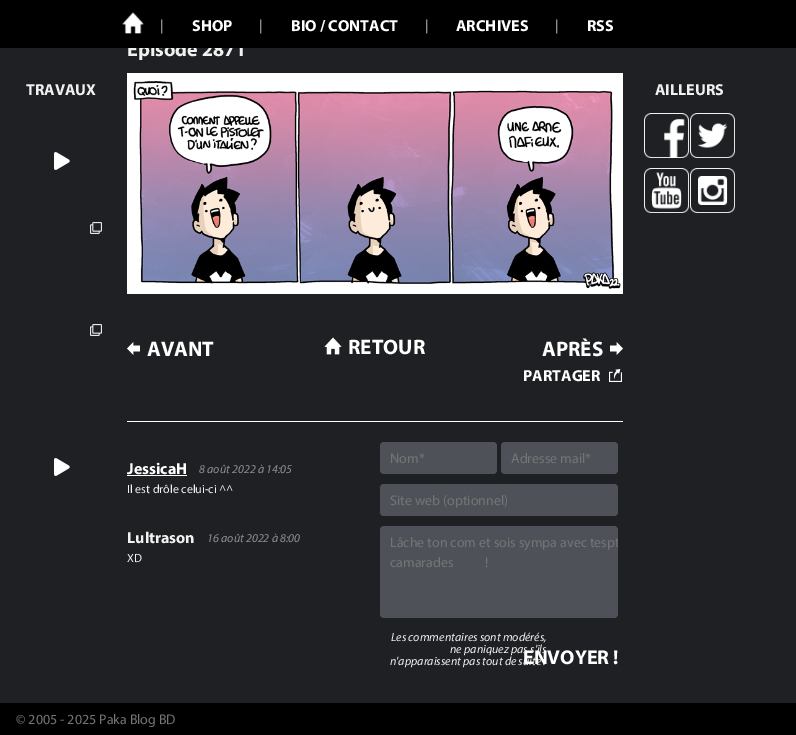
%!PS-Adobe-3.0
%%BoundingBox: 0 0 796 735
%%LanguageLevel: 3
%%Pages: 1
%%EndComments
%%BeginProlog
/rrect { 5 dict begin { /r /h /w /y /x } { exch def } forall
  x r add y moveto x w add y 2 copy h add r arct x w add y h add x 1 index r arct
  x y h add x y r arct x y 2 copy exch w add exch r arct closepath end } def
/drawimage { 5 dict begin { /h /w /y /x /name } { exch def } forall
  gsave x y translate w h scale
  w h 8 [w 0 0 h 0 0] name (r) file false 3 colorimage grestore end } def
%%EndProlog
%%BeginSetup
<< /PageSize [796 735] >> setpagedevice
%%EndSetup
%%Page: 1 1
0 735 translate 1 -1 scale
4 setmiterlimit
0.122 0.125 0.137 setrgbcolor
0 0 796 735 rectfill
(images/2.raw) 54 152 16 18 drawimage
(images/3.raw) 90 222 12 12 drawimage
(images/3.raw) 90 324 12 12 drawimage
(images/2.raw) 54 458 16 18 drawimage
(images/4.raw) 127 73 496 221 drawimage
(images/5.raw) 127 342 13 13 drawimage
(images/6.raw) 610 342 13 13 drawimage
(images/7.raw) 324 337 18 18 drawimage
(images/8.raw) 609 369 13 13 drawimage
1 setgray
127 421 496 1 rectfill
127 475 60 1 rectfill
0.31 0.318 0.349 setrgbcolor
380 442 117 32 4 rrect fill
501 442 117 32 4 rrect fill
380 484 238 32 4 rrect fill
380 526 238 92 4 rrect fill
(images/9.raw) 644 113 45 45 drawimage
(images/10.raw) 690 113 45 45 drawimage
(images/11.raw) 644 168 45 45 drawimage
(images/12.raw) 690 168 45 45 drawimage
0 setgray
0 703 796 32 rectfill
/Myriad-Bold [16 0 0 -16 0 0] selectfont
0.945 setgray
26 95 moveto (TRAVAUX) show
/Myriad-Bold [20 0 0 -20 0 0] selectfont
127 56 moveto (Episode 2871) show
0 setgray
0 0 796 48 rectfill
/Myriad-Bold [16 0 0 -16 0 0] selectfont
1 setgray
587 31 moveto (RSS) show
/Myriad-Regular [14 0 0 -14 0 0] selectfont
0.753 setgray
555 30 moveto (|) show
/Myriad-Bold [16 0 0 -16 0 0] selectfont
1 setgray
456 31 moveto (ARCHIVES) show
/Myriad-Regular [14 0 0 -14 0 0] selectfont
0.753 setgray
425 30 moveto (|) show
/Myriad-Bold [16 0 0 -16 0 0] selectfont
1 setgray
291 31 moveto (BIO / CONTACT) show
/Myriad-Regular [14 0 0 -14 0 0] selectfont
0.753 setgray
259 30 moveto (|) show
/Myriad-Bold [16 0 0 -16 0 0] selectfont
1 setgray
192 31 moveto (SHOP) show
/Myriad-Regular [14 0 0 -14 0 0] selectfont
0.753 setgray
160 30 moveto (|) show
(images/1.raw) 122 12 22 22 drawimage
/Myriad-Bold [21 0 0 -21 0 0] selectfont
1 setgray
147 356 moveto (AVANT) show
542 356 moveto (APRÈS) show
348 354 moveto (RETOUR) show
/Myriad-Bold [16 0 0 -16 0 0] selectfont
523 381 moveto (PARTAGER) show
127 474 moveto (JessicaH) show
/Myriad-Italic [12 0 0 -12 0 0] selectfont
0.565 setgray
199 473 moveto (8 août 2022 à 14:05) show
/Myriad-Regular [12 0 0 -12 0 0] selectfont
0.945 setgray
127 493 moveto (Il est drôle celui-ci ^^) show
/Myriad-Bold [16 0 0 -16 0 0] selectfont
127 543 moveto (Lultrason) show
/Myriad-Italic [12 0 0 -12 0 0] selectfont
0.565 setgray
207 542 moveto (16 août 2022 à 8:00) show
/Myriad-Regular [12 0 0 -12 0 0] selectfont
0.945 setgray
127 562 moveto (XD) show
/Myriad-Regular [14 0 0 -14 0 0] selectfont
0.459 setgray
390 463 moveto (Nom*) show
511 463 moveto (Adresse mail*) show
390 505 moveto (Site web \(optionnel\)) show
390 547 moveto (Lâche ton com et sois sympa avec tes) show
gsave
380 526 238 92 4 rrect clip newpath
607 547 moveto (pt) show
grestore
390 567 moveto 29 0 32 (camarades !) widthshow
/Myriad-Italic [12 0 0 -12 0 0] selectfont
0.945 setgray
391 641 moveto (Les commentaires sont modérés,) show
450 653 moveto (ne paniquez pas s'ils) show
390 665 moveto (n'apparaissent pas tout de suite !) show
/Myriad-Bold [20 0 0 -20 0 0] selectfont
1 setgray
523 664 moveto (ENVOYER !) show
/Myriad-Bold [16 0 0 -16 0 0] selectfont
0.945 setgray
655 95 moveto (AILLEURS) show
/Myriad-Regular [14 0 0 -14 0 0] selectfont
0.459 setgray
16 724 moveto (© 2005 - 2025 Paka Blog BD) show
showpage
%%EOF
